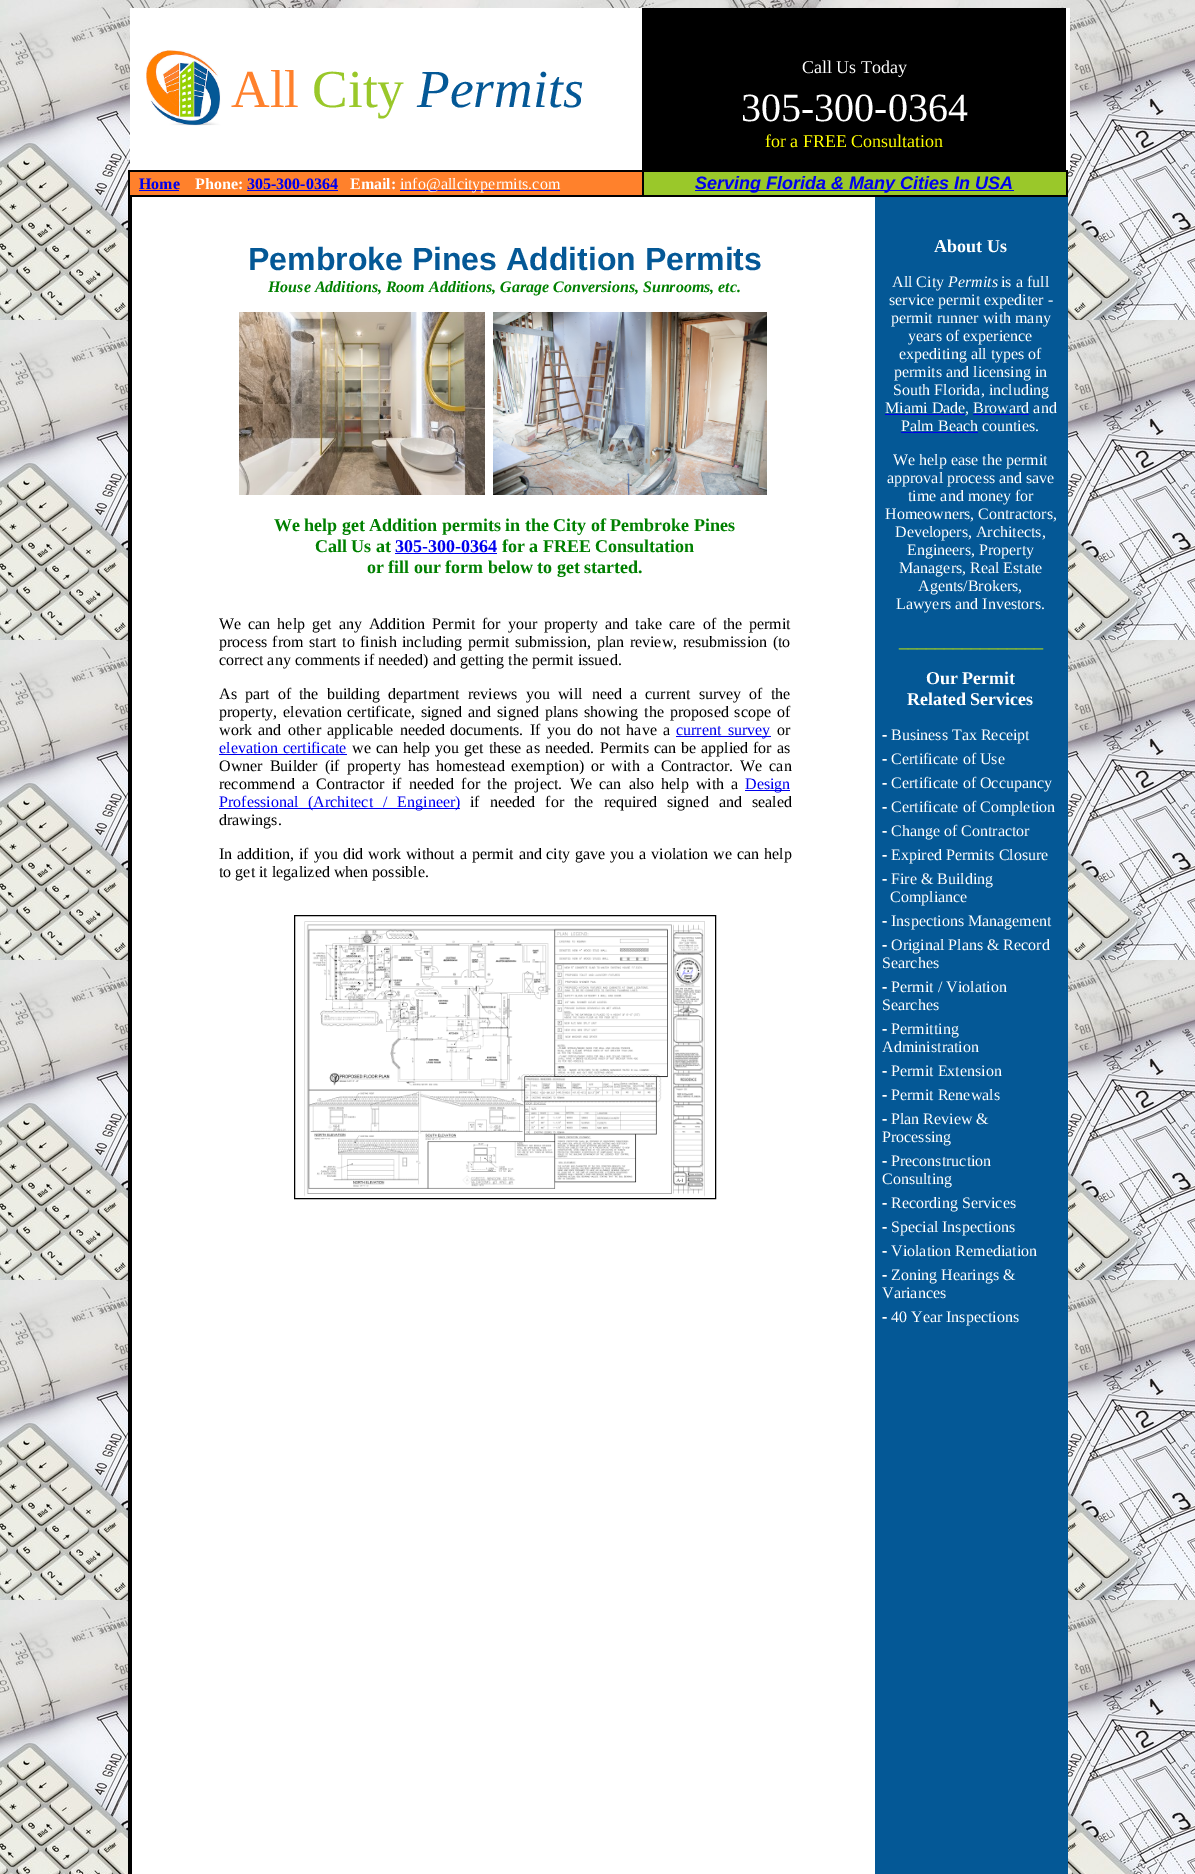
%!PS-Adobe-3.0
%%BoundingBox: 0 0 1195 1874
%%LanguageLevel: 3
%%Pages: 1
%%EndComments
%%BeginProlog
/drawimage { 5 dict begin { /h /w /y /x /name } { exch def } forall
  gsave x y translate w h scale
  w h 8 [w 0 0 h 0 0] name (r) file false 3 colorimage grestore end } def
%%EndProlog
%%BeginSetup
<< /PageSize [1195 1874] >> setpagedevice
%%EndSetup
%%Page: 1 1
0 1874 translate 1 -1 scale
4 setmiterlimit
1 setgray
0 0 1195 1874 rectfill
(images/1.raw) 0 0 1195 1874 drawimage
130 8 98 162 rectfill
1066 8 4 162 rectfill
(images/2.raw) 146 50 75 76 drawimage
228 8 414 135 rectfill
0 setgray
642 8 424 162 rectfill
1 setgray
228 143 414 27 rectfill
0 setgray
128 170 940 27 rectfill
1 0.506 0.173 setrgbcolor
130 172 512 23 rectfill
0 0 0.933 setrgbcolor
139 190 40 1 rectfill
247 190 91 1 rectfill
400 190 160 1 rectfill
0.604 0.784 0.165 setrgbcolor
644 172 422 23 rectfill
0 0 0.933 setrgbcolor
695 190 319 1 rectfill
1 setgray
132 197 743 1677 rectfill
0 setgray
128 197 4 1677 rectfill
0.016 0.345 0.588 setrgbcolor
875 197 193 1677 rectfill
(images/3.raw) 239 312 246 183 drawimage
(images/4.raw) 493 312 274 183 drawimage
0 0 0.933 setrgbcolor
395 553 102 1 rectfill
676 736 95 1 rectfill
219 754 128 1 rectfill
745 790 45 1 rectfill
219 808 241 1 rectfill
0 setgray
294.5 915.5 421 283 rectstroke
(images/5.raw) 304 921 401 276 drawimage
0 0 0.933 setrgbcolor
885 414 80 1 rectfill
901 432 77 1 rectfill
/LiberationSerif-Regular [53.5 0 0 -53.5 0 0] selectfont
1 0.506 0.173 setrgbcolor
231 107 moveto (All) show
0.604 0.784 0.165 setrgbcolor
312 107 moveto (City) show
/LiberationSerif-Italic [53.5 0 0 -53.5 0 0] selectfont
0.016 0.345 0.588 setrgbcolor
417 107 moveto (Permits) show
/LiberationSerif-Regular [18 0 0 -18 0 0] selectfont
1 setgray
802 73 moveto (Call Us Today) show
/LiberationSerif-Regular [40 0 0 -40 0 0] selectfont
741 121 moveto (305-300-0364) show
/LiberationSerif-Regular [18 0 0 -18 0 0] selectfont
1 1 0 setrgbcolor
765 147 moveto (for a FREE Consultation) show
/LiberationSerif-Bold [16 0 0 -16 0 0] selectfont
0 0 0.933 setrgbcolor
139 189 moveto (Home) show
1 setgray
195 189 moveto (Phone:) show
0 0 0.933 setrgbcolor
247 189 moveto (305-300-0364) show
1 setgray
350 189 moveto (Email:) show
/LiberationSerif-Regular [16 0 0 -16 0 0] selectfont
400 189 moveto (info@allcitypermits.com) show
/LiberationSans-BoldItalic [18 0 0 -18 0 0] selectfont
0 0 0.933 setrgbcolor
695 189 moveto (Serving Florida & Many Cities In USA) show
/LiberationSans-Bold [32 0 0 -32 0 0] selectfont
0.016 0.345 0.588 setrgbcolor
248 270 moveto (Pembroke Pines Addition Permits) show
/LiberationSerif-BoldItalic [16 0 0 -16 0 0] selectfont
0 0.502 0 setrgbcolor
268 292 moveto (House Additions, Room Additions, Garage Conversions, Sunrooms, etc.) show
/LiberationSerif-Bold [18 0 0 -18 0 0] selectfont
274 531 moveto (We help get Addition permits in the City of Pembroke Pines) show
315 552 moveto (Call Us at) show
0 0 0.933 setrgbcolor
395 552 moveto (305-300-0364) show
0 0.502 0 setrgbcolor
502 552 moveto (for a FREE Consultation) show
367 573 moveto (or fill our form below to get started.) show
/LiberationSerif-Regular [16 0 0 -16 0 0] selectfont
0 setgray
219 629 moveto 3 0 32 (We can help get any Addition Permit for your) widthshow
544 629 moveto 3 0 32 (property and take care of the p) widthshow
757 629 moveto (ermit) show
219 647 moveto 1.5 0 32 (process from start to finish including permit) widthshow
515 647 moveto 1.5 0 32 (submission, plan review, resubmission \(to) widthshow
219 665 moveto (correct any comments if needed\) and getting the permit issued.) show
219 699 moveto 4 0 32 (As part of the building department reviews you will) widthshow
592 699 moveto 4 0 32 (need a current survey of the) widthshow
219 717 moveto 1.75 0 32 (property, elevation) widthshow
347 717 moveto 1.75 0 32 (certificate, signed and signed plans showing the) widthshow
670 717 moveto 1.75 0 32 (proposed scope of) widthshow
219 735 moveto 2.5 0 32 (work and other applicable needed) widthshow
450 735 moveto 2.5 0 32 (documents. If you) widthshow
577 735 moveto 2.5 0 32 (do not have a) widthshow
0 0 0.933 setrgbcolor
676 735 moveto 2.5 0 32 (current survey) widthshow
0 setgray
777 735 moveto (or) show
0 0 0.933 setrgbcolor
219 753 moveto 1 0 32 (elevation certificate) widthshow
0 setgray
352 753 moveto 1 0 32 (we can help you) widthshow
464 753 moveto 1 0 32 (get these as needed.) widthshow
600 753 moveto 1 0 32 (Permits can be applied) widthshow
753 753 moveto 1 0 32 (for as) widthshow
219 771 moveto 3 0 32 (Owner Builder \(if property has homestead) widthshow
511 771 moveto 3 0 32 (exemption\) or with a Contractor. We can) widthshow
219 789 moveto 3.25 0 32 (recommend a) widthshow
316 789 moveto 3.25 0 32 (Contractor if needed for the project. We can also) widthshow
661 789 moveto 3.25 0 32 (help with a) widthshow
0 0 0.933 setrgbcolor
745 789 moveto (Design) show
219 807 moveto 6 0 32 (Professional \(Architect / Engineer\)) widthshow
0 setgray
470 807 moveto (if) show
490 807 moveto 6 0 32 (needed for the required signed and sealed) widthshow
219 825 moveto (drawings.) show
219 859 moveto 1 0 32 (In addition, if you did work without a permit and) widthshow
546 859 moveto 1 0 32 (city gave you a violation we can help) widthshow
219 877 moveto (to get it legalized when possible.) show
/LiberationSerif-Bold [18 0 0 -18 0 0] selectfont
1 setgray
934 252 moveto (About Us) show
/LiberationSerif-Regular [16 0 0 -16 0 0] selectfont
892 287 moveto (All City) show
/LiberationSerif-Italic [16 0 0 -16 0 0] selectfont
948 287 moveto (Permits) show
/LiberationSerif-Regular [16 0 0 -16 0 0] selectfont
1001 287 moveto (is a full) show
889 305 moveto (service permit expediter -) show
891 323 moveto (permit runner with many) show
908 341 moveto (years of experience) show
899 359 moveto (expediting all types of) show
894 377 moveto (permits and licensing in) show
893 395 moveto (South Florida, including) show
885 413 moveto (Miami Dade, Broward and) show
0 0 0.933 setrgbcolor
973 414 56 1 rectfill
1 setgray
901 431 moveto (Palm Beach counties.) show
893 465 moveto (We help ease the permit) show
887 483 moveto (approval process and save) show
908 501 moveto (time and money for) show
885 519 moveto (Homeowners, Contractors,) show
895 537 moveto (Developers, Architects,) show
907 555 moveto (Engineers, Property) show
899 573 moveto (Managers, Real Estate) show
918 591 moveto (Agents/Brokers,) show
896 609 moveto (Lawyers and Investors.) show
/LiberationSerif-Bold [18 0 0 -18 0 0] selectfont
0.604 0.784 0.165 setrgbcolor
899 647 moveto (________________) show
1 setgray
926 684 moveto (Our Permit) show
907 705 moveto (Related Services) show
/LiberationSans-Bold [16 0 0 -16 0 0] selectfont
882 740 moveto (-) show
/LiberationSerif-Regular [16 0 0 -16 0 0] selectfont
891 740 moveto (Business Tax Receipt) show
/LiberationSans-Bold [16 0 0 -16 0 0] selectfont
882 764 moveto (-) show
/LiberationSerif-Regular [16 0 0 -16 0 0] selectfont
891 764 moveto (Certificate of Use) show
/LiberationSans-Bold [16 0 0 -16 0 0] selectfont
882 788 moveto (-) show
/LiberationSerif-Regular [16 0 0 -16 0 0] selectfont
891 788 moveto (Certificate of Occupancy) show
/LiberationSans-Bold [16 0 0 -16 0 0] selectfont
882 812 moveto (-) show
/LiberationSerif-Regular [16 0 0 -16 0 0] selectfont
891 812 moveto (Certificate of Completion) show
/LiberationSans-Bold [16 0 0 -16 0 0] selectfont
882 836 moveto (-) show
/LiberationSerif-Regular [16 0 0 -16 0 0] selectfont
891 836 moveto (Change of Contractor) show
/LiberationSans-Bold [16 0 0 -16 0 0] selectfont
882 860 moveto (-) show
/LiberationSerif-Regular [16 0 0 -16 0 0] selectfont
891 860 moveto (Expired Permits Closure) show
/LiberationSans-Bold [16 0 0 -16 0 0] selectfont
882 884 moveto (-) show
/LiberationSerif-Regular [16 0 0 -16 0 0] selectfont
891 884 moveto (Fire & Building) show
890 902 moveto (Compliance) show
/LiberationSans-Bold [16 0 0 -16 0 0] selectfont
882 926 moveto (-) show
/LiberationSerif-Regular [16 0 0 -16 0 0] selectfont
891 926 moveto (Inspections Management) show
/LiberationSans-Bold [16 0 0 -16 0 0] selectfont
882 950 moveto (-) show
/LiberationSerif-Regular [16 0 0 -16 0 0] selectfont
891 950 moveto (Original Plans & Record) show
882 968 moveto (Searches) show
/LiberationSans-Bold [16 0 0 -16 0 0] selectfont
882 992 moveto (-) show
/LiberationSerif-Regular [16 0 0 -16 0 0] selectfont
891 992 moveto (Permit / Violation) show
882 1010 moveto (Searches) show
/LiberationSans-Bold [16 0 0 -16 0 0] selectfont
882 1034 moveto (-) show
/LiberationSerif-Regular [16 0 0 -16 0 0] selectfont
891 1034 moveto (Permitting) show
882 1052 moveto (Administration) show
/LiberationSans-Bold [16 0 0 -16 0 0] selectfont
882 1076 moveto (-) show
/LiberationSerif-Regular [16 0 0 -16 0 0] selectfont
891 1076 moveto (Permit Extension) show
/LiberationSans-Bold [16 0 0 -16 0 0] selectfont
882 1100 moveto (-) show
/LiberationSerif-Regular [16 0 0 -16 0 0] selectfont
891 1100 moveto (Permit Renewals) show
/LiberationSans-Bold [16 0 0 -16 0 0] selectfont
882 1124 moveto (-) show
/LiberationSerif-Regular [16 0 0 -16 0 0] selectfont
891 1124 moveto (Plan Review &) show
882 1142 moveto (Processing) show
/LiberationSans-Bold [16 0 0 -16 0 0] selectfont
882 1166 moveto (-) show
/LiberationSerif-Regular [16 0 0 -16 0 0] selectfont
891 1166 moveto (Preconstruction) show
882 1184 moveto (Consulting) show
/LiberationSans-Bold [16 0 0 -16 0 0] selectfont
882 1208 moveto (-) show
/LiberationSerif-Regular [16 0 0 -16 0 0] selectfont
891 1208 moveto (Recording Services) show
/LiberationSans-Bold [16 0 0 -16 0 0] selectfont
882 1232 moveto (-) show
/LiberationSerif-Regular [16 0 0 -16 0 0] selectfont
891 1232 moveto (Special Inspections) show
/LiberationSans-Bold [16 0 0 -16 0 0] selectfont
882 1256 moveto (-) show
/LiberationSerif-Regular [16 0 0 -16 0 0] selectfont
891 1256 moveto (Violation Remediation) show
/LiberationSans-Bold [16 0 0 -16 0 0] selectfont
882 1280 moveto (-) show
/LiberationSerif-Regular [16 0 0 -16 0 0] selectfont
891 1280 moveto (Zoning Hearings &) show
882 1298 moveto (Variances) show
/LiberationSans-Bold [16 0 0 -16 0 0] selectfont
882 1322 moveto (-) show
/LiberationSerif-Regular [16 0 0 -16 0 0] selectfont
891 1322 moveto (40 Year Inspections) show
showpage
%%EOF
